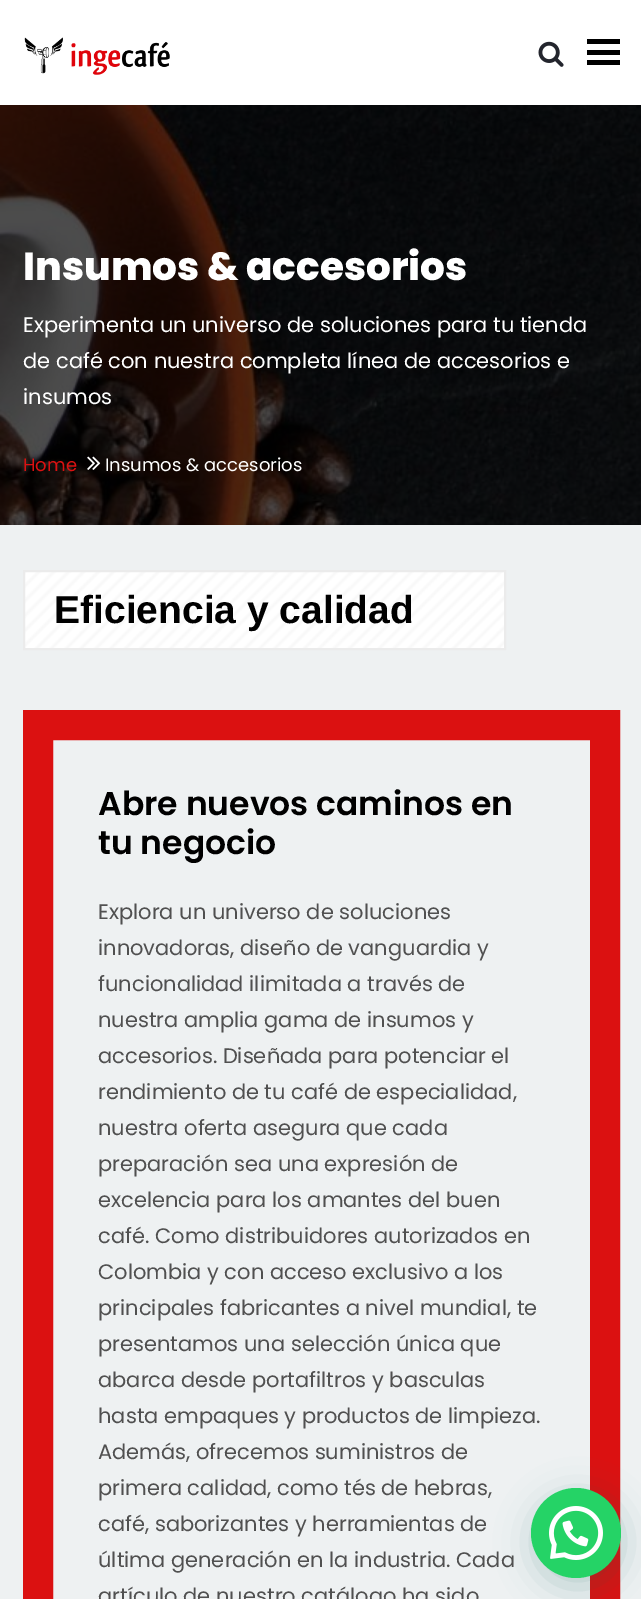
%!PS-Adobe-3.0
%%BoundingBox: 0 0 641 1599
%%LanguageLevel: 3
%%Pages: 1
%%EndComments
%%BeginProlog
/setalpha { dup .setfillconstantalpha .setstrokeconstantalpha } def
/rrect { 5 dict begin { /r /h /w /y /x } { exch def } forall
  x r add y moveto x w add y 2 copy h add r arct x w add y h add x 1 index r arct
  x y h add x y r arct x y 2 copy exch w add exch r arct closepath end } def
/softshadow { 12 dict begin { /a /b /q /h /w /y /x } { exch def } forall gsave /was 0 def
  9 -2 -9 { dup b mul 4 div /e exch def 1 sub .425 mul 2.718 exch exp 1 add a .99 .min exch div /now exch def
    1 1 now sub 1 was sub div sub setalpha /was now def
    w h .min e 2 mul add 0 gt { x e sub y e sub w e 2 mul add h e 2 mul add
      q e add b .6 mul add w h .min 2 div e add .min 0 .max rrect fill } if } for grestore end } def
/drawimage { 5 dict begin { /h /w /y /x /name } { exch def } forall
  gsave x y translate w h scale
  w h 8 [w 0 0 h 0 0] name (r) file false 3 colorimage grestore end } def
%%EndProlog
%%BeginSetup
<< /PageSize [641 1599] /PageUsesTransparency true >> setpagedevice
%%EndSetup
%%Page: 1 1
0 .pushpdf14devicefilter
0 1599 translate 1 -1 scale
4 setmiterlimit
1 setgray
0 0 641 1599 rectfill
(images/1.raw) 24 37 146 38 drawimage
(images/2.raw) 538 41 26 26 drawimage
0 setgray
587 39 33 5 rectfill
587 50 33 5 rectfill
587 60 33 5 rectfill
(images/3.raw) 0 105 641 420 drawimage
(images/4.raw) 87 456 14 14 drawimage
0.933 0.945 0.949 setrgbcolor
0 525 641 1074 rectfill
1 setgray
25 572 479 76 rectfill
(images/5.raw) 25 572 479 76 drawimage
0.922 setgray
2 setlinewidth
24 571 481 78 rectstroke
0.859 0.067 0.067 setrgbcolor
30 setlinewidth
38 725 567 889 rectstroke
0.027 0.369 0.329 setrgbcolor
533 1497 90 90 45 18 0.24 softshadow
0.145 0.827 0.4 setrgbcolor
newpath 576 1533 45 0 360 arc closepath fill
(images/6.raw) 549 1506 54 54 drawimage
/Poppins-ExtraBold [39 0 0 -39 0 0] selectfont
1 setgray
23 280 moveto (Insumos & accesorios) show
/Poppins-Regular [21 0 0 -21 0 0] selectfont
23 332 moveto (Experimenta un universo de soluciones para tu tienda) show
23 368 moveto (de café con nuestra completa línea de accesorios e) show
23 404 moveto (insumos) show
/Poppins-Regular [18 0 0 -18 0 0] selectfont
0.859 0.067 0.067 setrgbcolor
23 471 moveto (Home) show
1 setgray
105 471 moveto (Insumos & accesorios) show
/LiberationSans-Bold [39 0 0 -39 0 0] selectfont
0 setgray
54 623 moveto (Eficiencia y calidad) show
/Poppins-SemiBold [33 0 0 -33 0 0] selectfont
98 815 moveto (Abre nuevos caminos en) show
98 854 moveto (tu negocio) show
/Poppins-Regular [21 0 0 -21 0 0] selectfont
0.314 setgray
98 919 moveto (Explora un universo de soluciones) show
98 955 moveto (innovadoras, diseño de vanguardia y) show
98 991 moveto (funcionalidad ilimitada a través de) show
98 1027 moveto (nuestra amplia gama de insumos y) show
98 1063 moveto (accesorios. Diseñada para potenciar el) show
98 1099 moveto (rendimiento de tu café de especialidad,) show
98 1135 moveto (nuestra oferta asegura que cada) show
98 1171 moveto (preparación sea una expresión de) show
98 1207 moveto (excelencia para los amantes del buen) show
98 1243 moveto (café. Como distribuidores autorizados en) show
98 1279 moveto (Colombia y con acceso exclusivo a los) show
98 1315 moveto (principales fabricantes a nivel mundial, te) show
98 1351 moveto (presentamos una selección única que) show
98 1387 moveto (abarca desde portafiltros y basculas) show
98 1423 moveto (hasta empaques y productos de limpieza.) show
98 1459 moveto (Además, ofrecemos suministros de) show
98 1495 moveto (primera calidad, como tés de hebras,) show
98 1531 moveto (café, saborizantes y herramientas de) show
98 1567 moveto (última generación en la industria. Cada) show
98 1603 moveto (artículo de nuestro catálogo ha sido) show
.poppdf14devicefilter showpage
%%EOF
